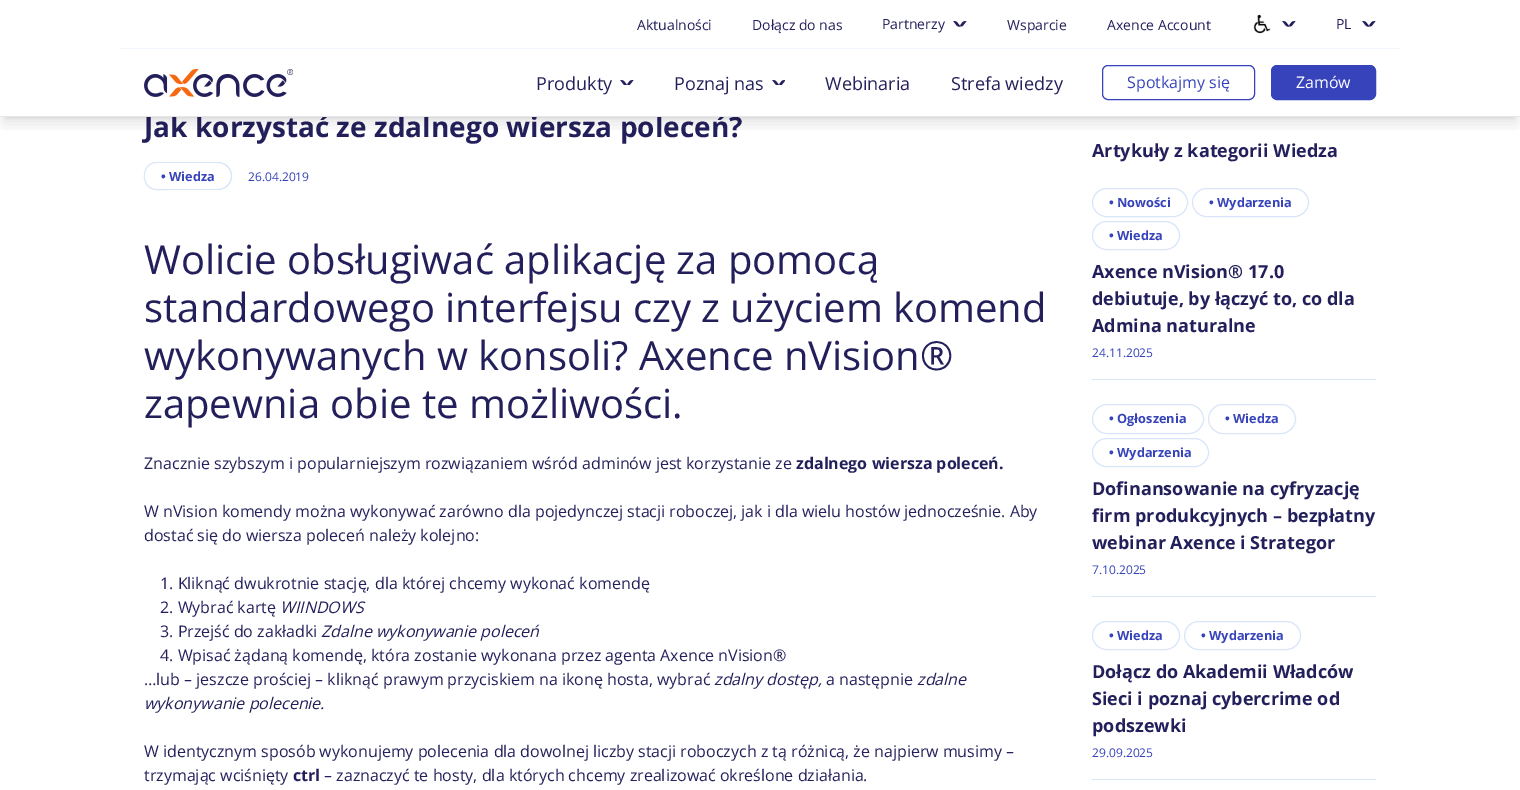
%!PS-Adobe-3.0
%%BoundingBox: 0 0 1520 790
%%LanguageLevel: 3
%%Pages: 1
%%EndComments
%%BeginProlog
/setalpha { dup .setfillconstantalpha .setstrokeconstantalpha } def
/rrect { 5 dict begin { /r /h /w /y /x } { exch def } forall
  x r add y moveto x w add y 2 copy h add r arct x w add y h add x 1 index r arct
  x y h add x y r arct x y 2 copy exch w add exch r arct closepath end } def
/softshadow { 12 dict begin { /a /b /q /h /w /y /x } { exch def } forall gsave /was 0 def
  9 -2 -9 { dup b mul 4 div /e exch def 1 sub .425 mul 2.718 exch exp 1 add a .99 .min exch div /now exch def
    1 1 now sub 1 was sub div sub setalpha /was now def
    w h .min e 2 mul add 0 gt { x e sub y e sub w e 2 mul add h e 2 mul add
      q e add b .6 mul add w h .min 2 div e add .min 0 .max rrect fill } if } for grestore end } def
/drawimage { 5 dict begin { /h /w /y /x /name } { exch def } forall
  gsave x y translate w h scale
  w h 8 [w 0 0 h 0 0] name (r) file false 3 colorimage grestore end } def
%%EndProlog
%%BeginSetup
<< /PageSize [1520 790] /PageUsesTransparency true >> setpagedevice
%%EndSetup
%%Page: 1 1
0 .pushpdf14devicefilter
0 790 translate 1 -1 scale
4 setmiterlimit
1 setgray
0 0 1520 790 rectfill
0.851 0.898 0.976 setrgbcolor
newpath 156.5 162 moveto 169 162 lineto 169 190 lineto 164.5 190 156 191 151.5 189 curveto 139.5 184 142 162 156.5 162 curveto closepath 156.5 163 moveto 169 163 lineto 169 189 lineto 164.5 189 156 190 152 188 curveto 140.5 183.5 143 163 156.5 163 curveto closepath eofill
newpath 169 162 moveto 218 162 lineto 226 162 232 168 232 176 curveto 232 184 226 190 218 190 curveto 169 190 lineto closepath 169 163 moveto 218 163 lineto 225 163 231 169 231 176 curveto 231 183 225 189 218 189 curveto 169 189 lineto closepath eofill
1092 379 284 1 rectfill
1092.5 188.5 95 28 14 rrect stroke
1192.5 188.5 116 28 14 rrect stroke
1092.5 221.5 87 28 14 rrect stroke
1092 596 284 1 rectfill
1092.5 404.5 111 29 14.5 rrect stroke
1208.5 404.5 87 29 14.5 rrect stroke
1092.5 438.5 116 28 14 rrect stroke
1092 779 284 1 rectfill
1092.5 621.5 87 28 14 rrect stroke
1184.5 621.5 116 28 14 rrect stroke
/OpenSans-Bold [28 0 0 -28 0 0] selectfont
0.137 0.122 0.357 setrgbcolor
144 137 moveto (Jak korzystać ze zdalnego wiersza poleceń?) show
1 setgray
172 115 554 1 rectfill
gsave
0 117 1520 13 rectclip
0 setgray
3 13 1514 111 0 7.5 0.1 softshadow
grestore
gsave
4 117 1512 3 rectclip
0 setgray
4 8 1512 109 0 3 0.1 softshadow
grestore
(images/1.raw) 1282 21 14 6 drawimage
(images/2.raw) 1253 14 18 20 drawimage
(images/1.raw) 953 21 14 6 drawimage
/OpenSans-Regular [14 0 0 -14 0 0] selectfont
0.137 0.122 0.357 setrgbcolor
882 29 moveto (Partnerzy) show
1336 29 moveto (PL) show
(images/1.raw) 1362 21 14 6 drawimage
1107 30 moveto (Axence Account) show
1007 30 moveto (Wsparcie) show
752 30 moveto (Dołącz do nas) show
637 30 moveto (Aktualności) show
0.949 0.969 1 setrgbcolor
120 48 1280 1 rectfill
(images/5.raw) 772 80 13 5 drawimage
/OpenSans-Regular [18 0 0 -18 0 0] selectfont
0.137 0.122 0.357 setrgbcolor
674 90 moveto (Poznaj nas) show
0.212 0.263 0.729 setrgbcolor
1271.5 65.5 104 34 5.5 rrect gsave fill grestore
stroke
/OpenSans-Regular [16 0 0 -16 0 0] selectfont
1 setgray
1296 88 moveto (Zamów) show
0.212 0.263 0.729 setrgbcolor
1102.5 65.5 152 34 5.5 rrect stroke
1127 88 moveto (Spotkajmy się) show
(images/4.raw) 620 80 14 5 drawimage
/OpenSans-Regular [18 0 0 -18 0 0] selectfont
0.137 0.122 0.357 setrgbcolor
536 90 moveto (Produkty) show
(images/3.raw) 144 69 149 28 drawimage
951 90 moveto (Strefa wiedzy) show
825 90 moveto (Webinaria) show
0.898 0.906 0.922 setrgbcolor
0 116 1520 1 rectfill
/OpenSans-Bold [12.75 0 0 -12.75 0 0] selectfont
0.212 0.263 0.729 setrgbcolor
161 181 moveto (• Wiedza) show
/OpenSans-Regular [12 0 0 -12 0 0] selectfont
248 181 moveto (26.04.2019) show
/OpenSans-Regular [40 0 0 -40 0 0] selectfont
0.137 0.122 0.357 setrgbcolor
144 274 moveto (Wolicie obsługiwać aplikację za pomocą) show
144 322 moveto (standardowego interfejsu czy z użyciem komend) show
144 370 moveto (wykonywanych w konsoli? Axence nVision®) show
144 418 moveto (zapewnia obie te możliwości.) show
/OpenSans-Regular [16 0 0 -16 0 0] selectfont
144 469 moveto (Znacznie szybszym i popularniejszym rozwiązaniem wśród adminów jest korzystanie ze) show
/OpenSans-Bold [16 0 0 -16 0 0] selectfont
796 469 moveto (zdalnego wiersza poleceń.) show
/OpenSans-Regular [16 0 0 -16 0 0] selectfont
144 517 moveto (W nVision komendy można wykonywać zarówno dla pojedynczej stacji roboczej, jak i dla wielu hostów jednocześnie. Aby) show
144 541 moveto (dostać się do wiersza poleceń należy kolejno:) show
160 589 moveto (1. Kliknąć dwukrotnie stację, dla której chcemy wykonać komendę) show
160 613 moveto (2. Wybrać kartę) show
/OpenSans-Italic [16 0 0 -16 0 0] selectfont
280 613 moveto (WIINDOWS) show
/OpenSans-Regular [16 0 0 -16 0 0] selectfont
160 637 moveto (3. Przejść do zakładki) show
/OpenSans-Italic [16 0 0 -16 0 0] selectfont
321 637 moveto (Zdalne wykonywanie poleceń) show
/OpenSans-Regular [16 0 0 -16 0 0] selectfont
160 661 moveto (4. Wpisać żądaną komendę, która zostanie wykonana przez agenta Axence nVision®) show
144 685 moveto (…lub – jeszcze prościej – kliknąć prawym przyciskiem na ikonę hosta, wybrać) show
/OpenSans-Italic [16 0 0 -16 0 0] selectfont
714 685 moveto (zdalny dostęp,) show
/OpenSans-Regular [16 0 0 -16 0 0] selectfont
826 685 moveto (a następnie) show
/OpenSans-Italic [16 0 0 -16 0 0] selectfont
917 685 moveto (zdalne) show
144 709 moveto (wykonywanie polecenie.) show
/OpenSans-Regular [16 0 0 -16 0 0] selectfont
144 757 moveto (W identycznym sposób wykonujemy polecenia dla dowolnej liczby stacji roboczych z tą różnicą, że najpierw musimy –) show
144 781 moveto (trzymając wciśnięty) show
/OpenSans-Bold [16 0 0 -16 0 0] selectfont
293 781 moveto (ctrl) show
/OpenSans-Regular [16 0 0 -16 0 0] selectfont
324 781 moveto (– zaznaczyć te hosty, dla których chcemy zrealizować określone działania.) show
/OpenSans-Bold [18 0 0 -18 0 0] selectfont
1092 157 moveto (Artykuły z kategorii Wiedza) show
/OpenSans-Bold [12.75 0 0 -12.75 0 0] selectfont
0.212 0.263 0.729 setrgbcolor
1109 207 moveto (• Nowości) show
1209 207 moveto (• Wydarzenia) show
1109 240 moveto (• Wiedza) show
/OpenSans-Bold [18 0 0 -18 0 0] selectfont
0.137 0.122 0.357 setrgbcolor
1092 278 moveto (Axence nVision® 17.0) show
1092 305 moveto (debiutuje, by łączyć to, co dla) show
1092 332 moveto (Admina naturalne) show
/OpenSans-Regular [12 0 0 -12 0 0] selectfont
0.212 0.263 0.729 setrgbcolor
1092 357 moveto (24.11.2025) show
/OpenSans-Bold [12.75 0 0 -12.75 0 0] selectfont
1109 423 moveto (• Ogłoszenia) show
1225 423 moveto (• Wiedza) show
1109 457 moveto (• Wydarzenia) show
/OpenSans-Bold [18 0 0 -18 0 0] selectfont
0.137 0.122 0.357 setrgbcolor
1092 495 moveto (Dofinansowanie na cyfryzację) show
1092 522 moveto (firm produkcyjnych – bezpłatny) show
1092 549 moveto (webinar Axence i Strategor) show
/OpenSans-Regular [12 0 0 -12 0 0] selectfont
0.212 0.263 0.729 setrgbcolor
1092 574 moveto (7.10.2025) show
/OpenSans-Bold [12.75 0 0 -12.75 0 0] selectfont
1109 640 moveto (• Wiedza) show
1201 640 moveto (• Wydarzenia) show
/OpenSans-Bold [18 0 0 -18 0 0] selectfont
0.137 0.122 0.357 setrgbcolor
1092 678 moveto (Dołącz do Akademii Władców) show
1092 705 moveto (Sieci i poznaj cybercrime od) show
1092 732 moveto (podszewki) show
/OpenSans-Regular [12 0 0 -12 0 0] selectfont
0.212 0.263 0.729 setrgbcolor
1092 757 moveto (29.09.2025) show
.poppdf14devicefilter showpage
%%EOF
